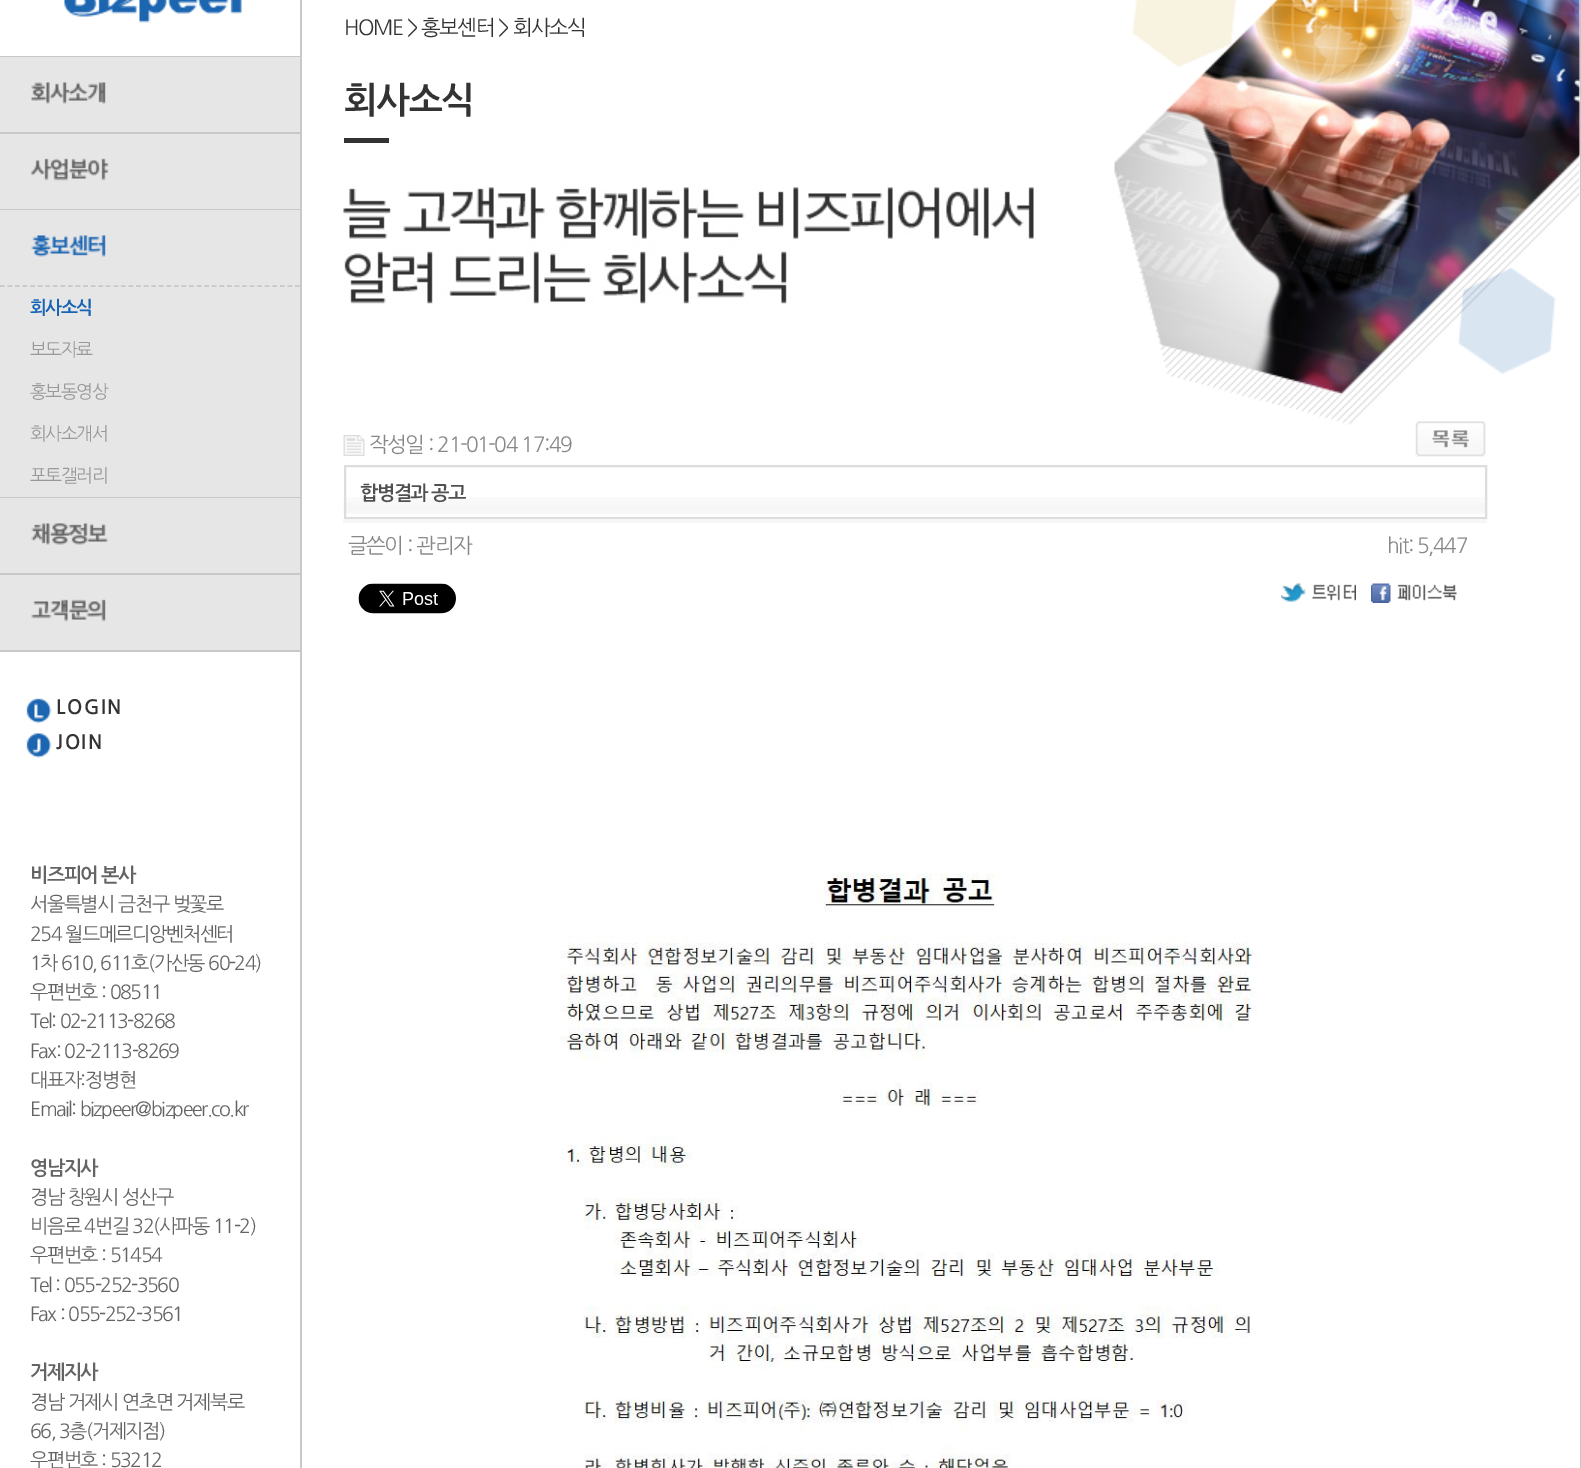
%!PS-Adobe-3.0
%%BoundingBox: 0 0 1581 1468
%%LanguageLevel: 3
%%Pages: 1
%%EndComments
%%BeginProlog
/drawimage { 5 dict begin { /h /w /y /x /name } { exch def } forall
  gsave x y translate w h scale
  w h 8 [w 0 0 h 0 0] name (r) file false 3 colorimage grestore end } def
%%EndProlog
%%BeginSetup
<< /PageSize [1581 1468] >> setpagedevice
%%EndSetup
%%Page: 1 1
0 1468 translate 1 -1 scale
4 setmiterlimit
1 setgray
0 0 1581 1468 rectfill
0.784 setgray
1580 0 1 1468 rectfill
0 56 300 1 rectfill
(images/1.raw) 64 0 178 23 drawimage
0.902 setgray
0 57 300 75 rectfill
0.784 setgray
0 132 300 2 rectfill
(images/2.raw) 31 82 75 22 drawimage
0.902 setgray
0 134 300 75 rectfill
0.784 setgray
0 209 300 1 rectfill
(images/3.raw) 30 158 79 23 drawimage
0.902 setgray
0 210 300 287 rectfill
0.784 setgray
0 497 300 1 rectfill
1.5 setlinewidth
[4.5 3.07] 0 setdash
newpath 0 286 moveto 300 286 lineto stroke
(images/4.raw) 31 235 75 22 drawimage
0.902 setgray
0 498 300 75 rectfill
0.784 setgray
0 573 300 2 rectfill
(images/5.raw) 31 523 78 22 drawimage
0.902 setgray
0 575 300 75 rectfill
0.784 setgray
0 650 300 2 rectfill
(images/6.raw) 31 599 75 23 drawimage
(images/7.raw) 26 698 26 25 drawimage
(images/8.raw) 26 733 26 25 drawimage
300 0 2 1468 rectfill
(images/12.raw) 1415 421 71 36 drawimage
(images/9.raw) 1114 0 466 425 drawimage
0.2 setgray
344 138 45 5 rectfill
(images/10.raw) 343 187 691 117 drawimage
(images/11.raw) 343 435 22 21 drawimage
(images/13.raw) 343 497 1142 17 drawimage
0.867 setgray
2 setlinewidth
[] 0 setdash
345 466 1141 52 rectstroke
0.965 setgray
343 519 1144 4 rectfill
(images/14.raw) 358 583 98 31 drawimage
(images/15.raw) 1281 583 75 19 drawimage
(images/16.raw) 1371 583 86 20 drawimage
(images/17.raw) 560 873 697 595 drawimage
/NanumGothic-Bold [18 0 0 -18 0 0] selectfont
0.09 0.392 0.706 setrgbcolor
30 314 moveto -1.5 0 (회사소식) ashow
/NanumGothic-Regular [18 0 0 -18 0 0] selectfont
0.6 setgray
30 356 moveto -1.5 0 (보도자료) ashow
30 398 moveto -1.5 0 (홍보동영상) ashow
30 440 moveto -1.5 0 (회사소개서) ashow
30 482 moveto -1.5 0 (포토갤러리) ashow
/NanumGothic-Bold [19.5 0 0 -19.5 0 0] selectfont
0.2 setgray
56 714 moveto 1.5 0 (LOGIN) ashow
56 749 moveto 1.5 0 (JOIN) ashow
0.392 setgray
30 882 moveto -1.5 0 (비즈피어 본사) ashow
/NanumGothic-Regular [19.5 0 0 -19.5 0 0] selectfont
30 911 moveto -1.5 0 (서울특별시 금천구 벚꽃로) ashow
30 941 moveto -1.5 0 (254 월드메르디앙벤처센터) ashow
30 970 moveto -1.5 0 (1차 610, 611호\(가산동 60-24\)) ashow
30 999 moveto -1.5 0 (우편번호 : 08511) ashow
30 1028 moveto -1.5 0 (Tel: 02-2113-8268) ashow
30 1058 moveto -1.5 0 (Fax: 02-2113-8269) ashow
30 1087 moveto -1.5 0 (대표자:정병현) ashow
30 1116 moveto -1.5 0 (Email: bizpeer@bizpeer.co.kr) ashow
/NanumGothic-Bold [19.5 0 0 -19.5 0 0] selectfont
30 1175 moveto -1.5 0 (영남지사) ashow
/NanumGothic-Regular [19.5 0 0 -19.5 0 0] selectfont
30 1204 moveto -1.5 0 (경남 창원시 성산구) ashow
30 1233 moveto -1.5 0 (비음로 4번길 32\(사파동 11-2\)) ashow
30 1262 moveto -1.5 0 (우편번호 : 51454) ashow
30 1292 moveto -1.5 0 (Tel : 055-252-3560) ashow
30 1321 moveto -1.5 0 (Fax : 055-252-3561) ashow
/NanumGothic-Bold [19.5 0 0 -19.5 0 0] selectfont
30 1379 moveto -1.5 0 (거제지사) ashow
/NanumGothic-Regular [19.5 0 0 -19.5 0 0] selectfont
30 1409 moveto -1.5 0 (경남 거제시 연초면 거제북로) ashow
30 1438 moveto -1.5 0 (66, 3층\(거제지점\)) ashow
30 1467 moveto -1.5 0 (우편번호 : 53212) ashow
/NanumGothic-Regular [21 0 0 -21 0 0] selectfont
0.2 setgray
344 35 moveto -1.5 0 (HOME > 홍보센터 > 회사소식) ashow
/NanumGothic-Bold [36 0 0 -36 0 0] selectfont
344 113 moveto -1.5 0 (회사소식) ashow
/NanumGothic-Regular [21 0 0 -21 0 0] selectfont
0.533 setgray
369 452 moveto -1.5 0 (작성일 : 21-01-04 17:49) ashow
/NanumGothic-Bold [19.5 0 0 -19.5 0 0] selectfont
0.314 setgray
360 500 moveto -1.5 0 (합병결과 공고) ashow
/NanumGothic-Regular [21 0 0 -21 0 0] selectfont
0.533 setgray
348 553 moveto -1.5 0 (글쓴이 : 관리자) ashow
1387 553 moveto -1.5 0 (hit: 5,447) ashow
showpage
%%EOF
